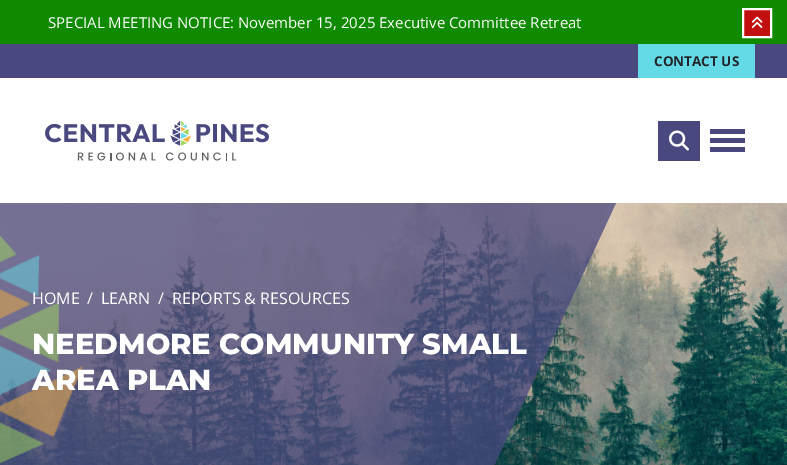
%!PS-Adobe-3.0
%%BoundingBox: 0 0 787 465
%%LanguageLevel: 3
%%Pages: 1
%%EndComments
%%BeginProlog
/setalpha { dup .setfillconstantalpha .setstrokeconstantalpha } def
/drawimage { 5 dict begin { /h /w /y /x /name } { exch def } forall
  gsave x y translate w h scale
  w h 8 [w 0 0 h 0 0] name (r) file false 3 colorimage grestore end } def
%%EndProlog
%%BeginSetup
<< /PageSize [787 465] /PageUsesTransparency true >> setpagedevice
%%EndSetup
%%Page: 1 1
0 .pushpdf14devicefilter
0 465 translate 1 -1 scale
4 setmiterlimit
1 setgray
0 0 787 465 rectfill
0.063 0.541 0 setrgbcolor
0 0 787 44 rectfill
0.757 0.055 0.055 setrgbcolor
newpath 743 9 moveto 771 9 lineto 771 37 lineto 743 37 lineto closepath gsave fill grestore
1 setgray
2 setlinewidth
stroke
(images/1.raw) 751 16 12 12 drawimage
0.286 0.286 0.498 setrgbcolor
0 44 787 34 rectfill
0.392 0.855 0.902 setrgbcolor
638 44 117 34 rectfill
(images/2.raw) 45 120 224 41 drawimage
0.286 0.286 0.498 setrgbcolor
658 121 42 40 rectfill
(images/3.raw) 669 130 20 21 drawimage
710 129 35 5 rectfill
710 138 35 5 rectfill
710 147 35 5 rectfill
(images/5.raw) 0 203 787 262 drawimage
0.75 setalpha
newpath -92 203 moveto 616 203 lineto 486 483 lineto -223 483 lineto closepath fill
1 setalpha
(images/4.raw) 0 235 83 229 drawimage
/OpenSans-Regular [15 0 0 -15 0 0] selectfont
1 setgray
48 28 moveto (SPECIAL MEETING NOTICE: November 15, 2025 Executive Committee Retreat) show
/OpenSans-Bold [13.5 0 0 -13.5 0 0] selectfont
0.129 0.145 0.161 setrgbcolor
654 66 moveto (CONTACT US) show
/OpenSans-Regular [16 0 0 -16 0 0] selectfont
1 setgray
32 304 moveto (HOME) show
87 304 moveto (/) show
101 304 moveto (LEARN) show
158 304 moveto (/) show
172 304 moveto (REPORTS & RESOURCES) show
/Montserrat-ExtraBold [28.9 0 0 -28.9 0 0] selectfont
32 354 moveto (NEEDMORE COMMUNITY SMALL) show
32 390 moveto (AREA PLAN) show
.poppdf14devicefilter showpage
%%EOF
